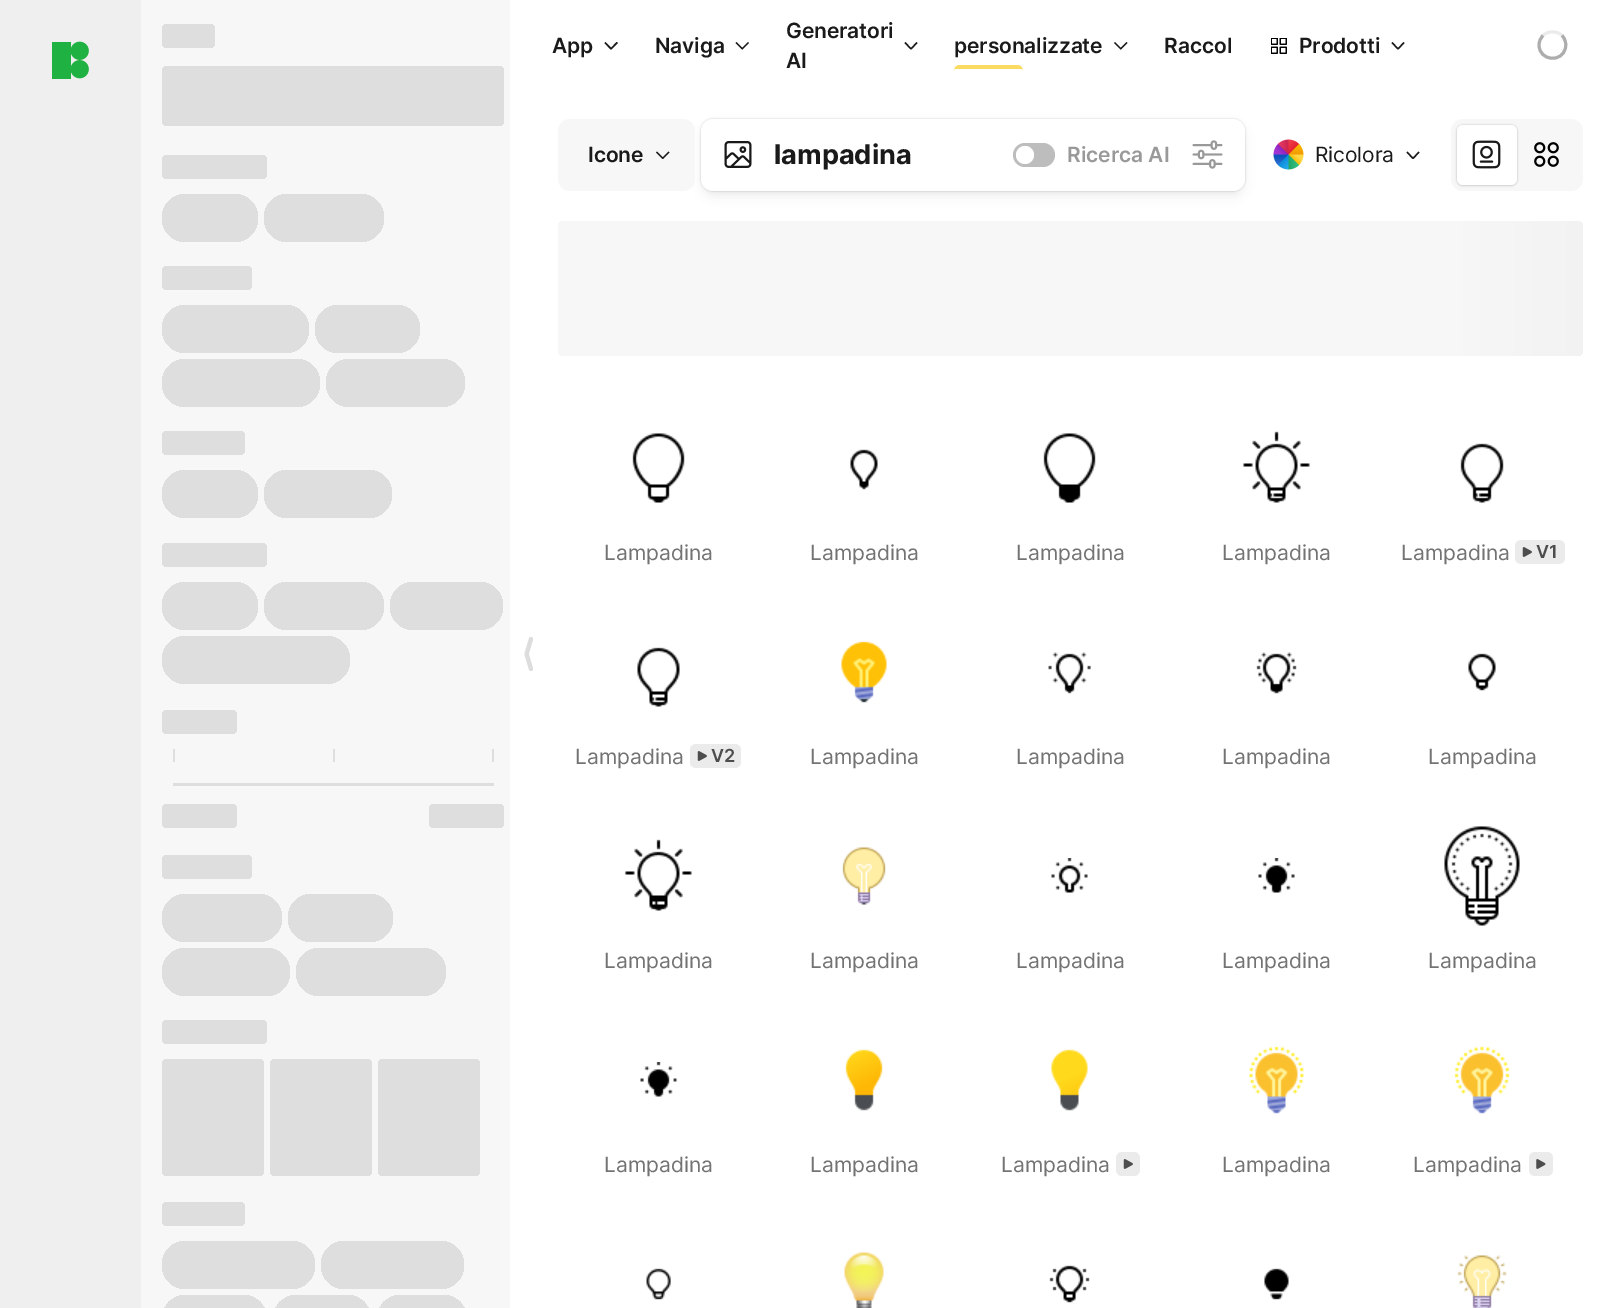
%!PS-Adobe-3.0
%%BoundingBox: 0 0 1615 1308
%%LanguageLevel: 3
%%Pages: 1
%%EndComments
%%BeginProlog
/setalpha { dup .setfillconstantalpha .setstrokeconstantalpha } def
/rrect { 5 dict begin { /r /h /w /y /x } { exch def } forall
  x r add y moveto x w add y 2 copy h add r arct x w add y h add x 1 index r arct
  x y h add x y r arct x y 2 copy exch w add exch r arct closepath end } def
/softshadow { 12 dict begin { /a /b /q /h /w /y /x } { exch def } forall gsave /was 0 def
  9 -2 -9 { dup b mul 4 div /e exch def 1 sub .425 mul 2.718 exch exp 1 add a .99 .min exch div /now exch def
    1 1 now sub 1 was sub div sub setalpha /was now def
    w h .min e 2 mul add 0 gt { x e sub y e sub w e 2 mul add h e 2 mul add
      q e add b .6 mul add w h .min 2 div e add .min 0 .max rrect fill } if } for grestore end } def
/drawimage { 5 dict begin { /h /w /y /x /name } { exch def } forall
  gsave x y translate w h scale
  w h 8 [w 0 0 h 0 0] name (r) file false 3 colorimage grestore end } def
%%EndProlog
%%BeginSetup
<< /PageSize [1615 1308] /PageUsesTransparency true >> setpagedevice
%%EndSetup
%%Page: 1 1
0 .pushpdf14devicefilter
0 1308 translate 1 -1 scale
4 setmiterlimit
1 setgray
0 0 1615 1308 rectfill
0.937 setgray
0 0 141 1308 rectfill
(images/1.raw) 52 41 37 38 drawimage
0.969 setgray
141 0 369 1308 rectfill
gsave 162 24 53 24 6 rrect clip newpath
<< /ShadingType 2 /ColorSpace /DeviceRGB /Coords [-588 102 912 102] /Extend [true true] /Function << /FunctionType 3 /Domain [0 1] /Functions [<< /FunctionType 2 /Domain [0 1] /C0 [0.871 0.871 0.871] /C1 [0.871 0.871 0.871] /N 1 >> << /FunctionType 2 /Domain [0 1] /C0 [0.871 0.871 0.871] /C1 [0.922 0.922 0.922] /N 1 >> << /FunctionType 2 /Domain [0 1] /C0 [0.922 0.922 0.922] /C1 [0.871 0.871 0.871] /N 1 >> << /FunctionType 2 /Domain [0 1] /C0 [0.871 0.871 0.871] /C1 [0.871 0.871 0.871] /N 1 >>] /Bounds [0.1 0.18 0.33] /Encode [0 1 0 1 0 1 0 1] >> >> shfill grestore
gsave 162 66 342 60 6 rrect clip newpath
<< /ShadingType 2 /ColorSpace /DeviceRGB /Coords [-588 144 912 144] /Extend [true true] /Function << /FunctionType 3 /Domain [0 1] /Functions [<< /FunctionType 2 /Domain [0 1] /C0 [0.871 0.871 0.871] /C1 [0.871 0.871 0.871] /N 1 >> << /FunctionType 2 /Domain [0 1] /C0 [0.871 0.871 0.871] /C1 [0.922 0.922 0.922] /N 1 >> << /FunctionType 2 /Domain [0 1] /C0 [0.922 0.922 0.922] /C1 [0.871 0.871 0.871] /N 1 >> << /FunctionType 2 /Domain [0 1] /C0 [0.871 0.871 0.871] /C1 [0.871 0.871 0.871] /N 1 >>] /Bounds [0.1 0.18 0.33] /Encode [0 1 0 1 0 1 0 1] >> >> shfill grestore
gsave 162 155 105 24 6 rrect clip newpath
<< /ShadingType 2 /ColorSpace /DeviceRGB /Coords [-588 233 912 232] /Extend [true true] /Function << /FunctionType 3 /Domain [0 1] /Functions [<< /FunctionType 2 /Domain [0 1] /C0 [0.871 0.871 0.871] /C1 [0.871 0.871 0.871] /N 1 >> << /FunctionType 2 /Domain [0 1] /C0 [0.871 0.871 0.871] /C1 [0.922 0.922 0.922] /N 1 >> << /FunctionType 2 /Domain [0 1] /C0 [0.922 0.922 0.922] /C1 [0.871 0.871 0.871] /N 1 >> << /FunctionType 2 /Domain [0 1] /C0 [0.871 0.871 0.871] /C1 [0.871 0.871 0.871] /N 1 >>] /Bounds [0.1 0.18 0.33] /Encode [0 1 0 1 0 1 0 1] >> >> shfill grestore
gsave 162 194 96 48 24 rrect clip newpath
<< /ShadingType 2 /ColorSpace /DeviceRGB /Coords [-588 272 912 271] /Extend [true true] /Function << /FunctionType 3 /Domain [0 1] /Functions [<< /FunctionType 2 /Domain [0 1] /C0 [0.871 0.871 0.871] /C1 [0.871 0.871 0.871] /N 1 >> << /FunctionType 2 /Domain [0 1] /C0 [0.871 0.871 0.871] /C1 [0.922 0.922 0.922] /N 1 >> << /FunctionType 2 /Domain [0 1] /C0 [0.922 0.922 0.922] /C1 [0.871 0.871 0.871] /N 1 >> << /FunctionType 2 /Domain [0 1] /C0 [0.871 0.871 0.871] /C1 [0.871 0.871 0.871] /N 1 >>] /Bounds [0.1 0.18 0.33] /Encode [0 1 0 1 0 1 0 1] >> >> shfill grestore
gsave 264 194 120 48 24 rrect clip newpath
<< /ShadingType 2 /ColorSpace /DeviceRGB /Coords [-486 272 1014 271] /Extend [true true] /Function << /FunctionType 3 /Domain [0 1] /Functions [<< /FunctionType 2 /Domain [0 1] /C0 [0.871 0.871 0.871] /C1 [0.871 0.871 0.871] /N 1 >> << /FunctionType 2 /Domain [0 1] /C0 [0.871 0.871 0.871] /C1 [0.922 0.922 0.922] /N 1 >> << /FunctionType 2 /Domain [0 1] /C0 [0.922 0.922 0.922] /C1 [0.871 0.871 0.871] /N 1 >> << /FunctionType 2 /Domain [0 1] /C0 [0.871 0.871 0.871] /C1 [0.871 0.871 0.871] /N 1 >>] /Bounds [0.1 0.18 0.33] /Encode [0 1 0 1 0 1 0 1] >> >> shfill grestore
gsave 162 266 90 24 6 rrect clip newpath
<< /ShadingType 2 /ColorSpace /DeviceRGB /Coords [-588 344 912 343] /Extend [true true] /Function << /FunctionType 3 /Domain [0 1] /Functions [<< /FunctionType 2 /Domain [0 1] /C0 [0.871 0.871 0.871] /C1 [0.871 0.871 0.871] /N 1 >> << /FunctionType 2 /Domain [0 1] /C0 [0.871 0.871 0.871] /C1 [0.922 0.922 0.922] /N 1 >> << /FunctionType 2 /Domain [0 1] /C0 [0.922 0.922 0.922] /C1 [0.871 0.871 0.871] /N 1 >> << /FunctionType 2 /Domain [0 1] /C0 [0.871 0.871 0.871] /C1 [0.871 0.871 0.871] /N 1 >>] /Bounds [0.1 0.18 0.33] /Encode [0 1 0 1 0 1 0 1] >> >> shfill grestore
gsave 162 305 147 48 24 rrect clip newpath
<< /ShadingType 2 /ColorSpace /DeviceRGB /Coords [-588 383 912 382] /Extend [true true] /Function << /FunctionType 3 /Domain [0 1] /Functions [<< /FunctionType 2 /Domain [0 1] /C0 [0.871 0.871 0.871] /C1 [0.871 0.871 0.871] /N 1 >> << /FunctionType 2 /Domain [0 1] /C0 [0.871 0.871 0.871] /C1 [0.922 0.922 0.922] /N 1 >> << /FunctionType 2 /Domain [0 1] /C0 [0.922 0.922 0.922] /C1 [0.871 0.871 0.871] /N 1 >> << /FunctionType 2 /Domain [0 1] /C0 [0.871 0.871 0.871] /C1 [0.871 0.871 0.871] /N 1 >>] /Bounds [0.1 0.18 0.33] /Encode [0 1 0 1 0 1 0 1] >> >> shfill grestore
gsave 315 305 105 48 24 rrect clip newpath
<< /ShadingType 2 /ColorSpace /DeviceRGB /Coords [-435 383 1065 382] /Extend [true true] /Function << /FunctionType 3 /Domain [0 1] /Functions [<< /FunctionType 2 /Domain [0 1] /C0 [0.871 0.871 0.871] /C1 [0.871 0.871 0.871] /N 1 >> << /FunctionType 2 /Domain [0 1] /C0 [0.871 0.871 0.871] /C1 [0.922 0.922 0.922] /N 1 >> << /FunctionType 2 /Domain [0 1] /C0 [0.922 0.922 0.922] /C1 [0.871 0.871 0.871] /N 1 >> << /FunctionType 2 /Domain [0 1] /C0 [0.871 0.871 0.871] /C1 [0.871 0.871 0.871] /N 1 >>] /Bounds [0.1 0.18 0.33] /Encode [0 1 0 1 0 1 0 1] >> >> shfill grestore
gsave 162 359 158 48 24 rrect clip newpath
<< /ShadingType 2 /ColorSpace /DeviceRGB /Coords [-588 437 912 436] /Extend [true true] /Function << /FunctionType 3 /Domain [0 1] /Functions [<< /FunctionType 2 /Domain [0 1] /C0 [0.871 0.871 0.871] /C1 [0.871 0.871 0.871] /N 1 >> << /FunctionType 2 /Domain [0 1] /C0 [0.871 0.871 0.871] /C1 [0.922 0.922 0.922] /N 1 >> << /FunctionType 2 /Domain [0 1] /C0 [0.922 0.922 0.922] /C1 [0.871 0.871 0.871] /N 1 >> << /FunctionType 2 /Domain [0 1] /C0 [0.871 0.871 0.871] /C1 [0.871 0.871 0.871] /N 1 >>] /Bounds [0.1 0.18 0.33] /Encode [0 1 0 1 0 1 0 1] >> >> shfill grestore
gsave 326 359 139 48 24 rrect clip newpath
<< /ShadingType 2 /ColorSpace /DeviceRGB /Coords [-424 437 1076 436] /Extend [true true] /Function << /FunctionType 3 /Domain [0 1] /Functions [<< /FunctionType 2 /Domain [0 1] /C0 [0.871 0.871 0.871] /C1 [0.871 0.871 0.871] /N 1 >> << /FunctionType 2 /Domain [0 1] /C0 [0.871 0.871 0.871] /C1 [0.922 0.922 0.922] /N 1 >> << /FunctionType 2 /Domain [0 1] /C0 [0.922 0.922 0.922] /C1 [0.871 0.871 0.871] /N 1 >> << /FunctionType 2 /Domain [0 1] /C0 [0.871 0.871 0.871] /C1 [0.871 0.871 0.871] /N 1 >>] /Bounds [0.1 0.18 0.33] /Encode [0 1 0 1 0 1 0 1] >> >> shfill grestore
gsave 162 431 83 24 6 rrect clip newpath
<< /ShadingType 2 /ColorSpace /DeviceRGB /Coords [-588 509 912 508] /Extend [true true] /Function << /FunctionType 3 /Domain [0 1] /Functions [<< /FunctionType 2 /Domain [0 1] /C0 [0.871 0.871 0.871] /C1 [0.871 0.871 0.871] /N 1 >> << /FunctionType 2 /Domain [0 1] /C0 [0.871 0.871 0.871] /C1 [0.922 0.922 0.922] /N 1 >> << /FunctionType 2 /Domain [0 1] /C0 [0.922 0.922 0.922] /C1 [0.871 0.871 0.871] /N 1 >> << /FunctionType 2 /Domain [0 1] /C0 [0.871 0.871 0.871] /C1 [0.871 0.871 0.871] /N 1 >>] /Bounds [0.1 0.18 0.33] /Encode [0 1 0 1 0 1 0 1] >> >> shfill grestore
gsave 162 470 96 48 24 rrect clip newpath
<< /ShadingType 2 /ColorSpace /DeviceRGB /Coords [-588 548 912 547] /Extend [true true] /Function << /FunctionType 3 /Domain [0 1] /Functions [<< /FunctionType 2 /Domain [0 1] /C0 [0.871 0.871 0.871] /C1 [0.871 0.871 0.871] /N 1 >> << /FunctionType 2 /Domain [0 1] /C0 [0.871 0.871 0.871] /C1 [0.922 0.922 0.922] /N 1 >> << /FunctionType 2 /Domain [0 1] /C0 [0.922 0.922 0.922] /C1 [0.871 0.871 0.871] /N 1 >> << /FunctionType 2 /Domain [0 1] /C0 [0.871 0.871 0.871] /C1 [0.871 0.871 0.871] /N 1 >>] /Bounds [0.1 0.18 0.33] /Encode [0 1 0 1 0 1 0 1] >> >> shfill grestore
gsave 264 470 128 48 24 rrect clip newpath
<< /ShadingType 2 /ColorSpace /DeviceRGB /Coords [-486 548 1014 547] /Extend [true true] /Function << /FunctionType 3 /Domain [0 1] /Functions [<< /FunctionType 2 /Domain [0 1] /C0 [0.871 0.871 0.871] /C1 [0.871 0.871 0.871] /N 1 >> << /FunctionType 2 /Domain [0 1] /C0 [0.871 0.871 0.871] /C1 [0.922 0.922 0.922] /N 1 >> << /FunctionType 2 /Domain [0 1] /C0 [0.922 0.922 0.922] /C1 [0.871 0.871 0.871] /N 1 >> << /FunctionType 2 /Domain [0 1] /C0 [0.871 0.871 0.871] /C1 [0.871 0.871 0.871] /N 1 >>] /Bounds [0.1 0.18 0.33] /Encode [0 1 0 1 0 1 0 1] >> >> shfill grestore
gsave 162 543 105 24 6 rrect clip newpath
<< /ShadingType 2 /ColorSpace /DeviceRGB /Coords [-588 621 912 621] /Extend [true true] /Function << /FunctionType 3 /Domain [0 1] /Functions [<< /FunctionType 2 /Domain [0 1] /C0 [0.871 0.871 0.871] /C1 [0.871 0.871 0.871] /N 1 >> << /FunctionType 2 /Domain [0 1] /C0 [0.871 0.871 0.871] /C1 [0.922 0.922 0.922] /N 1 >> << /FunctionType 2 /Domain [0 1] /C0 [0.922 0.922 0.922] /C1 [0.871 0.871 0.871] /N 1 >> << /FunctionType 2 /Domain [0 1] /C0 [0.871 0.871 0.871] /C1 [0.871 0.871 0.871] /N 1 >>] /Bounds [0.1 0.18 0.33] /Encode [0 1 0 1 0 1 0 1] >> >> shfill grestore
gsave 162 582 96 48 24 rrect clip newpath
<< /ShadingType 2 /ColorSpace /DeviceRGB /Coords [-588 660 912 660] /Extend [true true] /Function << /FunctionType 3 /Domain [0 1] /Functions [<< /FunctionType 2 /Domain [0 1] /C0 [0.871 0.871 0.871] /C1 [0.871 0.871 0.871] /N 1 >> << /FunctionType 2 /Domain [0 1] /C0 [0.871 0.871 0.871] /C1 [0.922 0.922 0.922] /N 1 >> << /FunctionType 2 /Domain [0 1] /C0 [0.922 0.922 0.922] /C1 [0.871 0.871 0.871] /N 1 >> << /FunctionType 2 /Domain [0 1] /C0 [0.871 0.871 0.871] /C1 [0.871 0.871 0.871] /N 1 >>] /Bounds [0.1 0.18 0.33] /Encode [0 1 0 1 0 1 0 1] >> >> shfill grestore
gsave 264 582 120 48 24 rrect clip newpath
<< /ShadingType 2 /ColorSpace /DeviceRGB /Coords [-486 660 1014 660] /Extend [true true] /Function << /FunctionType 3 /Domain [0 1] /Functions [<< /FunctionType 2 /Domain [0 1] /C0 [0.871 0.871 0.871] /C1 [0.871 0.871 0.871] /N 1 >> << /FunctionType 2 /Domain [0 1] /C0 [0.871 0.871 0.871] /C1 [0.922 0.922 0.922] /N 1 >> << /FunctionType 2 /Domain [0 1] /C0 [0.922 0.922 0.922] /C1 [0.871 0.871 0.871] /N 1 >> << /FunctionType 2 /Domain [0 1] /C0 [0.871 0.871 0.871] /C1 [0.871 0.871 0.871] /N 1 >>] /Bounds [0.1 0.18 0.33] /Encode [0 1 0 1 0 1 0 1] >> >> shfill grestore
gsave 390 582 113 48 24 rrect clip newpath
<< /ShadingType 2 /ColorSpace /DeviceRGB /Coords [-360 660 1140 660] /Extend [true true] /Function << /FunctionType 3 /Domain [0 1] /Functions [<< /FunctionType 2 /Domain [0 1] /C0 [0.871 0.871 0.871] /C1 [0.871 0.871 0.871] /N 1 >> << /FunctionType 2 /Domain [0 1] /C0 [0.871 0.871 0.871] /C1 [0.922 0.922 0.922] /N 1 >> << /FunctionType 2 /Domain [0 1] /C0 [0.922 0.922 0.922] /C1 [0.871 0.871 0.871] /N 1 >> << /FunctionType 2 /Domain [0 1] /C0 [0.871 0.871 0.871] /C1 [0.871 0.871 0.871] /N 1 >>] /Bounds [0.1 0.18 0.33] /Encode [0 1 0 1 0 1 0 1] >> >> shfill grestore
gsave 162 636 188 48 24 rrect clip newpath
<< /ShadingType 2 /ColorSpace /DeviceRGB /Coords [-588 714 912 714] /Extend [true true] /Function << /FunctionType 3 /Domain [0 1] /Functions [<< /FunctionType 2 /Domain [0 1] /C0 [0.871 0.871 0.871] /C1 [0.871 0.871 0.871] /N 1 >> << /FunctionType 2 /Domain [0 1] /C0 [0.871 0.871 0.871] /C1 [0.922 0.922 0.922] /N 1 >> << /FunctionType 2 /Domain [0 1] /C0 [0.922 0.922 0.922] /C1 [0.871 0.871 0.871] /N 1 >> << /FunctionType 2 /Domain [0 1] /C0 [0.871 0.871 0.871] /C1 [0.871 0.871 0.871] /N 1 >>] /Bounds [0.1 0.18 0.33] /Encode [0 1 0 1 0 1 0 1] >> >> shfill grestore
gsave 162 710 75 24 6 rrect clip newpath
<< /ShadingType 2 /ColorSpace /DeviceRGB /Coords [-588 788 912 788] /Extend [true true] /Function << /FunctionType 3 /Domain [0 1] /Functions [<< /FunctionType 2 /Domain [0 1] /C0 [0.871 0.871 0.871] /C1 [0.871 0.871 0.871] /N 1 >> << /FunctionType 2 /Domain [0 1] /C0 [0.871 0.871 0.871] /C1 [0.922 0.922 0.922] /N 1 >> << /FunctionType 2 /Domain [0 1] /C0 [0.922 0.922 0.922] /C1 [0.871 0.871 0.871] /N 1 >> << /FunctionType 2 /Domain [0 1] /C0 [0.871 0.871 0.871] /C1 [0.871 0.871 0.871] /N 1 >>] /Bounds [0.1 0.18 0.33] /Encode [0 1 0 1 0 1 0 1] >> >> shfill grestore
gsave 173 749 2 13 1 rrect clip newpath
<< /ShadingType 2 /ColorSpace /DeviceRGB /Coords [-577 827 923 827] /Extend [true true] /Function << /FunctionType 3 /Domain [0 1] /Functions [<< /FunctionType 2 /Domain [0 1] /C0 [0.871 0.871 0.871] /C1 [0.871 0.871 0.871] /N 1 >> << /FunctionType 2 /Domain [0 1] /C0 [0.871 0.871 0.871] /C1 [0.922 0.922 0.922] /N 1 >> << /FunctionType 2 /Domain [0 1] /C0 [0.922 0.922 0.922] /C1 [0.871 0.871 0.871] /N 1 >> << /FunctionType 2 /Domain [0 1] /C0 [0.871 0.871 0.871] /C1 [0.871 0.871 0.871] /N 1 >>] /Bounds [0.1 0.18 0.33] /Encode [0 1 0 1 0 1 0 1] >> >> shfill grestore
gsave 333 749 2 13 1 rrect clip newpath
<< /ShadingType 2 /ColorSpace /DeviceRGB /Coords [-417 827 1083 827] /Extend [true true] /Function << /FunctionType 3 /Domain [0 1] /Functions [<< /FunctionType 2 /Domain [0 1] /C0 [0.871 0.871 0.871] /C1 [0.871 0.871 0.871] /N 1 >> << /FunctionType 2 /Domain [0 1] /C0 [0.871 0.871 0.871] /C1 [0.922 0.922 0.922] /N 1 >> << /FunctionType 2 /Domain [0 1] /C0 [0.922 0.922 0.922] /C1 [0.871 0.871 0.871] /N 1 >> << /FunctionType 2 /Domain [0 1] /C0 [0.871 0.871 0.871] /C1 [0.871 0.871 0.871] /N 1 >>] /Bounds [0.1 0.18 0.33] /Encode [0 1 0 1 0 1 0 1] >> >> shfill grestore
gsave 492 749 2 13 1 rrect clip newpath
<< /ShadingType 2 /ColorSpace /DeviceRGB /Coords [-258 827 1242 827] /Extend [true true] /Function << /FunctionType 3 /Domain [0 1] /Functions [<< /FunctionType 2 /Domain [0 1] /C0 [0.871 0.871 0.871] /C1 [0.871 0.871 0.871] /N 1 >> << /FunctionType 2 /Domain [0 1] /C0 [0.871 0.871 0.871] /C1 [0.922 0.922 0.922] /N 1 >> << /FunctionType 2 /Domain [0 1] /C0 [0.922 0.922 0.922] /C1 [0.871 0.871 0.871] /N 1 >> << /FunctionType 2 /Domain [0 1] /C0 [0.871 0.871 0.871] /C1 [0.871 0.871 0.871] /N 1 >>] /Bounds [0.1 0.18 0.33] /Encode [0 1 0 1 0 1 0 1] >> >> shfill grestore
gsave 173 783 321 3 1.5 rrect clip newpath
<< /ShadingType 2 /ColorSpace /DeviceRGB /Coords [-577 861 923 861] /Extend [true true] /Function << /FunctionType 3 /Domain [0 1] /Functions [<< /FunctionType 2 /Domain [0 1] /C0 [0.871 0.871 0.871] /C1 [0.871 0.871 0.871] /N 1 >> << /FunctionType 2 /Domain [0 1] /C0 [0.871 0.871 0.871] /C1 [0.922 0.922 0.922] /N 1 >> << /FunctionType 2 /Domain [0 1] /C0 [0.922 0.922 0.922] /C1 [0.871 0.871 0.871] /N 1 >> << /FunctionType 2 /Domain [0 1] /C0 [0.871 0.871 0.871] /C1 [0.871 0.871 0.871] /N 1 >>] /Bounds [0.1 0.18 0.33] /Encode [0 1 0 1 0 1 0 1] >> >> shfill grestore
gsave 162 804 75 24 6 rrect clip newpath
<< /ShadingType 2 /ColorSpace /DeviceRGB /Coords [-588 882 912 882] /Extend [true true] /Function << /FunctionType 3 /Domain [0 1] /Functions [<< /FunctionType 2 /Domain [0 1] /C0 [0.871 0.871 0.871] /C1 [0.871 0.871 0.871] /N 1 >> << /FunctionType 2 /Domain [0 1] /C0 [0.871 0.871 0.871] /C1 [0.922 0.922 0.922] /N 1 >> << /FunctionType 2 /Domain [0 1] /C0 [0.922 0.922 0.922] /C1 [0.871 0.871 0.871] /N 1 >> << /FunctionType 2 /Domain [0 1] /C0 [0.871 0.871 0.871] /C1 [0.871 0.871 0.871] /N 1 >>] /Bounds [0.1 0.18 0.33] /Encode [0 1 0 1 0 1 0 1] >> >> shfill grestore
gsave 429 804 75 24 6 rrect clip newpath
<< /ShadingType 2 /ColorSpace /DeviceRGB /Coords [-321 882 1179 882] /Extend [true true] /Function << /FunctionType 3 /Domain [0 1] /Functions [<< /FunctionType 2 /Domain [0 1] /C0 [0.871 0.871 0.871] /C1 [0.871 0.871 0.871] /N 1 >> << /FunctionType 2 /Domain [0 1] /C0 [0.871 0.871 0.871] /C1 [0.922 0.922 0.922] /N 1 >> << /FunctionType 2 /Domain [0 1] /C0 [0.922 0.922 0.922] /C1 [0.871 0.871 0.871] /N 1 >> << /FunctionType 2 /Domain [0 1] /C0 [0.871 0.871 0.871] /C1 [0.871 0.871 0.871] /N 1 >>] /Bounds [0.1 0.18 0.33] /Encode [0 1 0 1 0 1 0 1] >> >> shfill grestore
gsave 162 855 90 24 6 rrect clip newpath
<< /ShadingType 2 /ColorSpace /DeviceRGB /Coords [-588 933 912 933] /Extend [true true] /Function << /FunctionType 3 /Domain [0 1] /Functions [<< /FunctionType 2 /Domain [0 1] /C0 [0.871 0.871 0.871] /C1 [0.871 0.871 0.871] /N 1 >> << /FunctionType 2 /Domain [0 1] /C0 [0.871 0.871 0.871] /C1 [0.922 0.922 0.922] /N 1 >> << /FunctionType 2 /Domain [0 1] /C0 [0.922 0.922 0.922] /C1 [0.871 0.871 0.871] /N 1 >> << /FunctionType 2 /Domain [0 1] /C0 [0.871 0.871 0.871] /C1 [0.871 0.871 0.871] /N 1 >>] /Bounds [0.1 0.18 0.33] /Encode [0 1 0 1 0 1 0 1] >> >> shfill grestore
gsave 162 894 120 48 24 rrect clip newpath
<< /ShadingType 2 /ColorSpace /DeviceRGB /Coords [-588 972 912 972] /Extend [true true] /Function << /FunctionType 3 /Domain [0 1] /Functions [<< /FunctionType 2 /Domain [0 1] /C0 [0.871 0.871 0.871] /C1 [0.871 0.871 0.871] /N 1 >> << /FunctionType 2 /Domain [0 1] /C0 [0.871 0.871 0.871] /C1 [0.922 0.922 0.922] /N 1 >> << /FunctionType 2 /Domain [0 1] /C0 [0.922 0.922 0.922] /C1 [0.871 0.871 0.871] /N 1 >> << /FunctionType 2 /Domain [0 1] /C0 [0.871 0.871 0.871] /C1 [0.871 0.871 0.871] /N 1 >>] /Bounds [0.1 0.18 0.33] /Encode [0 1 0 1 0 1 0 1] >> >> shfill grestore
gsave 288 894 105 48 24 rrect clip newpath
<< /ShadingType 2 /ColorSpace /DeviceRGB /Coords [-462 972 1038 972] /Extend [true true] /Function << /FunctionType 3 /Domain [0 1] /Functions [<< /FunctionType 2 /Domain [0 1] /C0 [0.871 0.871 0.871] /C1 [0.871 0.871 0.871] /N 1 >> << /FunctionType 2 /Domain [0 1] /C0 [0.871 0.871 0.871] /C1 [0.922 0.922 0.922] /N 1 >> << /FunctionType 2 /Domain [0 1] /C0 [0.922 0.922 0.922] /C1 [0.871 0.871 0.871] /N 1 >> << /FunctionType 2 /Domain [0 1] /C0 [0.871 0.871 0.871] /C1 [0.871 0.871 0.871] /N 1 >>] /Bounds [0.1 0.18 0.33] /Encode [0 1 0 1 0 1 0 1] >> >> shfill grestore
gsave 162 948 128 48 24 rrect clip newpath
<< /ShadingType 2 /ColorSpace /DeviceRGB /Coords [-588 1026 912 1026] /Extend [true true] /Function << /FunctionType 3 /Domain [0 1] /Functions [<< /FunctionType 2 /Domain [0 1] /C0 [0.871 0.871 0.871] /C1 [0.871 0.871 0.871] /N 1 >> << /FunctionType 2 /Domain [0 1] /C0 [0.871 0.871 0.871] /C1 [0.922 0.922 0.922] /N 1 >> << /FunctionType 2 /Domain [0 1] /C0 [0.922 0.922 0.922] /C1 [0.871 0.871 0.871] /N 1 >> << /FunctionType 2 /Domain [0 1] /C0 [0.871 0.871 0.871] /C1 [0.871 0.871 0.871] /N 1 >>] /Bounds [0.1 0.18 0.33] /Encode [0 1 0 1 0 1 0 1] >> >> shfill grestore
gsave 296 948 150 48 24 rrect clip newpath
<< /ShadingType 2 /ColorSpace /DeviceRGB /Coords [-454 1026 1046 1026] /Extend [true true] /Function << /FunctionType 3 /Domain [0 1] /Functions [<< /FunctionType 2 /Domain [0 1] /C0 [0.871 0.871 0.871] /C1 [0.871 0.871 0.871] /N 1 >> << /FunctionType 2 /Domain [0 1] /C0 [0.871 0.871 0.871] /C1 [0.922 0.922 0.922] /N 1 >> << /FunctionType 2 /Domain [0 1] /C0 [0.922 0.922 0.922] /C1 [0.871 0.871 0.871] /N 1 >> << /FunctionType 2 /Domain [0 1] /C0 [0.871 0.871 0.871] /C1 [0.871 0.871 0.871] /N 1 >>] /Bounds [0.1 0.18 0.33] /Encode [0 1 0 1 0 1 0 1] >> >> shfill grestore
gsave 162 1020 105 24 6 rrect clip newpath
<< /ShadingType 2 /ColorSpace /DeviceRGB /Coords [-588 1098 912 1098] /Extend [true true] /Function << /FunctionType 3 /Domain [0 1] /Functions [<< /FunctionType 2 /Domain [0 1] /C0 [0.871 0.871 0.871] /C1 [0.871 0.871 0.871] /N 1 >> << /FunctionType 2 /Domain [0 1] /C0 [0.871 0.871 0.871] /C1 [0.922 0.922 0.922] /N 1 >> << /FunctionType 2 /Domain [0 1] /C0 [0.922 0.922 0.922] /C1 [0.871 0.871 0.871] /N 1 >> << /FunctionType 2 /Domain [0 1] /C0 [0.871 0.871 0.871] /C1 [0.871 0.871 0.871] /N 1 >>] /Bounds [0.1 0.18 0.33] /Encode [0 1 0 1 0 1 0 1] >> >> shfill grestore
gsave 162 1059 102 117 6 rrect clip newpath
<< /ShadingType 2 /ColorSpace /DeviceRGB /Coords [-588 1137 912 1137] /Extend [true true] /Function << /FunctionType 3 /Domain [0 1] /Functions [<< /FunctionType 2 /Domain [0 1] /C0 [0.871 0.871 0.871] /C1 [0.871 0.871 0.871] /N 1 >> << /FunctionType 2 /Domain [0 1] /C0 [0.871 0.871 0.871] /C1 [0.922 0.922 0.922] /N 1 >> << /FunctionType 2 /Domain [0 1] /C0 [0.922 0.922 0.922] /C1 [0.871 0.871 0.871] /N 1 >> << /FunctionType 2 /Domain [0 1] /C0 [0.871 0.871 0.871] /C1 [0.871 0.871 0.871] /N 1 >>] /Bounds [0.1 0.18 0.33] /Encode [0 1 0 1 0 1 0 1] >> >> shfill grestore
gsave 270 1059 102 117 6 rrect clip newpath
<< /ShadingType 2 /ColorSpace /DeviceRGB /Coords [-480 1137 1020 1137] /Extend [true true] /Function << /FunctionType 3 /Domain [0 1] /Functions [<< /FunctionType 2 /Domain [0 1] /C0 [0.871 0.871 0.871] /C1 [0.871 0.871 0.871] /N 1 >> << /FunctionType 2 /Domain [0 1] /C0 [0.871 0.871 0.871] /C1 [0.922 0.922 0.922] /N 1 >> << /FunctionType 2 /Domain [0 1] /C0 [0.922 0.922 0.922] /C1 [0.871 0.871 0.871] /N 1 >> << /FunctionType 2 /Domain [0 1] /C0 [0.871 0.871 0.871] /C1 [0.871 0.871 0.871] /N 1 >>] /Bounds [0.1 0.18 0.33] /Encode [0 1 0 1 0 1 0 1] >> >> shfill grestore
gsave 378 1059 102 117 6 rrect clip newpath
<< /ShadingType 2 /ColorSpace /DeviceRGB /Coords [-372 1137 1128 1137] /Extend [true true] /Function << /FunctionType 3 /Domain [0 1] /Functions [<< /FunctionType 2 /Domain [0 1] /C0 [0.871 0.871 0.871] /C1 [0.871 0.871 0.871] /N 1 >> << /FunctionType 2 /Domain [0 1] /C0 [0.871 0.871 0.871] /C1 [0.922 0.922 0.922] /N 1 >> << /FunctionType 2 /Domain [0 1] /C0 [0.922 0.922 0.922] /C1 [0.871 0.871 0.871] /N 1 >> << /FunctionType 2 /Domain [0 1] /C0 [0.871 0.871 0.871] /C1 [0.871 0.871 0.871] /N 1 >>] /Bounds [0.1 0.18 0.33] /Encode [0 1 0 1 0 1 0 1] >> >> shfill grestore
gsave 162 1202 83 24 6 rrect clip newpath
<< /ShadingType 2 /ColorSpace /DeviceRGB /Coords [-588 1280 912 1280] /Extend [true true] /Function << /FunctionType 3 /Domain [0 1] /Functions [<< /FunctionType 2 /Domain [0 1] /C0 [0.871 0.871 0.871] /C1 [0.871 0.871 0.871] /N 1 >> << /FunctionType 2 /Domain [0 1] /C0 [0.871 0.871 0.871] /C1 [0.922 0.922 0.922] /N 1 >> << /FunctionType 2 /Domain [0 1] /C0 [0.922 0.922 0.922] /C1 [0.871 0.871 0.871] /N 1 >> << /FunctionType 2 /Domain [0 1] /C0 [0.871 0.871 0.871] /C1 [0.871 0.871 0.871] /N 1 >>] /Bounds [0.1 0.18 0.33] /Encode [0 1 0 1 0 1 0 1] >> >> shfill grestore
gsave 162 1241 153 48 24 rrect clip newpath
<< /ShadingType 2 /ColorSpace /DeviceRGB /Coords [-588 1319 912 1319] /Extend [true true] /Function << /FunctionType 3 /Domain [0 1] /Functions [<< /FunctionType 2 /Domain [0 1] /C0 [0.871 0.871 0.871] /C1 [0.871 0.871 0.871] /N 1 >> << /FunctionType 2 /Domain [0 1] /C0 [0.871 0.871 0.871] /C1 [0.922 0.922 0.922] /N 1 >> << /FunctionType 2 /Domain [0 1] /C0 [0.922 0.922 0.922] /C1 [0.871 0.871 0.871] /N 1 >> << /FunctionType 2 /Domain [0 1] /C0 [0.871 0.871 0.871] /C1 [0.871 0.871 0.871] /N 1 >>] /Bounds [0.1 0.18 0.33] /Encode [0 1 0 1 0 1 0 1] >> >> shfill grestore
gsave 321 1241 143 48 24 rrect clip newpath
<< /ShadingType 2 /ColorSpace /DeviceRGB /Coords [-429 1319 1071 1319] /Extend [true true] /Function << /FunctionType 3 /Domain [0 1] /Functions [<< /FunctionType 2 /Domain [0 1] /C0 [0.871 0.871 0.871] /C1 [0.871 0.871 0.871] /N 1 >> << /FunctionType 2 /Domain [0 1] /C0 [0.871 0.871 0.871] /C1 [0.922 0.922 0.922] /N 1 >> << /FunctionType 2 /Domain [0 1] /C0 [0.922 0.922 0.922] /C1 [0.871 0.871 0.871] /N 1 >> << /FunctionType 2 /Domain [0 1] /C0 [0.871 0.871 0.871] /C1 [0.871 0.871 0.871] /N 1 >>] /Bounds [0.1 0.18 0.33] /Encode [0 1 0 1 0 1 0 1] >> >> shfill grestore
gsave newpath 186 1295 moveto 243 1295 lineto 256.5 1295 267 1305.5 267 1319 curveto 267 1308 lineto 162 1308 lineto 162 1319 lineto 162 1305.5 172.5 1295 186 1295 curveto closepath clip newpath
<< /ShadingType 2 /ColorSpace /DeviceRGB /Coords [-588 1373 912 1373] /Extend [true true] /Function << /FunctionType 3 /Domain [0 1] /Functions [<< /FunctionType 2 /Domain [0 1] /C0 [0.871 0.871 0.871] /C1 [0.871 0.871 0.871] /N 1 >> << /FunctionType 2 /Domain [0 1] /C0 [0.871 0.871 0.871] /C1 [0.922 0.922 0.922] /N 1 >> << /FunctionType 2 /Domain [0 1] /C0 [0.922 0.922 0.922] /C1 [0.871 0.871 0.871] /N 1 >> << /FunctionType 2 /Domain [0 1] /C0 [0.871 0.871 0.871] /C1 [0.871 0.871 0.871] /N 1 >>] /Bounds [0.1 0.18 0.33] /Encode [0 1 0 1 0 1 0 1] >> >> shfill grestore
gsave newpath 297 1295 moveto 347 1295 lineto 360.5 1295 371 1305.5 371 1319 curveto 371 1308 lineto 273 1308 lineto 273 1319 lineto 273 1305.5 283.5 1295 297 1295 curveto closepath clip newpath
<< /ShadingType 2 /ColorSpace /DeviceRGB /Coords [-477 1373 1023 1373] /Extend [true true] /Function << /FunctionType 3 /Domain [0 1] /Functions [<< /FunctionType 2 /Domain [0 1] /C0 [0.871 0.871 0.871] /C1 [0.871 0.871 0.871] /N 1 >> << /FunctionType 2 /Domain [0 1] /C0 [0.871 0.871 0.871] /C1 [0.922 0.922 0.922] /N 1 >> << /FunctionType 2 /Domain [0 1] /C0 [0.922 0.922 0.922] /C1 [0.871 0.871 0.871] /N 1 >> << /FunctionType 2 /Domain [0 1] /C0 [0.871 0.871 0.871] /C1 [0.871 0.871 0.871] /N 1 >>] /Bounds [0.1 0.18 0.33] /Encode [0 1 0 1 0 1 0 1] >> >> shfill grestore
gsave newpath 401 1295 moveto 443 1295 lineto 456.5 1295 467 1305.5 467 1319 curveto 467 1308 lineto 377 1308 lineto 377 1319 lineto 377 1305.5 387.5 1295 401 1295 curveto closepath clip newpath
<< /ShadingType 2 /ColorSpace /DeviceRGB /Coords [-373 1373 1127 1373] /Extend [true true] /Function << /FunctionType 3 /Domain [0 1] /Functions [<< /FunctionType 2 /Domain [0 1] /C0 [0.871 0.871 0.871] /C1 [0.871 0.871 0.871] /N 1 >> << /FunctionType 2 /Domain [0 1] /C0 [0.871 0.871 0.871] /C1 [0.922 0.922 0.922] /N 1 >> << /FunctionType 2 /Domain [0 1] /C0 [0.922 0.922 0.922] /C1 [0.871 0.871 0.871] /N 1 >> << /FunctionType 2 /Domain [0 1] /C0 [0.871 0.871 0.871] /C1 [0.871 0.871 0.871] /N 1 >>] /Bounds [0.1 0.18 0.33] /Encode [0 1 0 1 0 1 0 1] >> >> shfill grestore
(images/2.raw) 524 637 9 34 drawimage
0.102 setgray
newpath 605.5 42 moveto 612 48.5 lineto 610.5 49.5 lineto 604.5 43 lineto closepath fill
newpath 610.5 48.5 moveto 616.5 42 lineto 618 43 lineto 611.5 49.5 lineto closepath fill
newpath 736.5 42 moveto 743 48.5 lineto 742 49.5 lineto 735.5 43 lineto closepath fill
newpath 741.5 48.5 moveto 748 42 lineto 749 43 lineto 742.5 49.5 lineto closepath fill
newpath 905.5 42 moveto 911.5 48.5 lineto 910.5 49.5 lineto 904.5 43 lineto closepath fill
newpath 910.5 48.5 moveto 916.5 42 lineto 917.5 43 lineto 911.5 49.5 lineto closepath fill
0.98 0.859 0.373 setrgbcolor
newpath 960 65 moveto 1017 65 lineto 1020.5 65 1023 67.5 1023 71 curveto 1023 69 lineto 954 69 lineto 954 71 lineto 954 67.5 956.5 65 960 65 curveto closepath fill
0.102 setgray
newpath 1115 42 moveto 1121.5 48.5 lineto 1120.5 49.5 lineto 1114 43 lineto closepath fill
newpath 1120 48.5 moveto 1126.5 42 lineto 1127.5 43 lineto 1121 49.5 lineto closepath fill
(images/3.raw) 1271 38 16 16 drawimage
newpath 1392.5 42 moveto 1398.5 48.5 lineto 1397.5 49.5 lineto 1391.5 43 lineto closepath fill
newpath 1397.5 48.5 moveto 1403.5 42 lineto 1404.5 43 lineto 1398.5 49.5 lineto closepath fill
0.922 setgray
3 setlinewidth
newpath 1543 35.5 moveto 1548 30.5 1557 30.5 1562 35.5 curveto stroke
0.8 setalpha
0.6 setgray
newpath 1562 35.5 moveto 1565 38.5 1566.5 43.5 1565.5 47.5 curveto 1562.5 63.5 1539 61 1539 45 curveto 1539 41.5 1540.5 38 1543 35.5 curveto stroke
1 setalpha
0.376 setgray
704 128 538 66 9 6 0.15 softshadow
0.969 setgray
558 119 137 72 12 rrect fill
0.102 setgray
newpath 657 151.5 moveto 663.5 158 lineto 662.5 159 lineto 656 152.5 lineto closepath fill
newpath 662 158 moveto 668.5 151.5 lineto 669.5 152.5 lineto 663 159 lineto closepath fill
0.376 setgray
701 119 544 72 12 1 0.31 softshadow
1 setgray
701 119 544 72 12 rrect fill
(images/4.raw) 724 141 28 27 drawimage
0.741 setgray
1013 143 42 24 12 rrect fill
1 setgray
newpath 1025 155 9 0 360 arc closepath fill
(images/5.raw) 1192 140 31 29 drawimage
(images/6.raw) 1273 139 31 31 drawimage
0.102 setgray
newpath 1407.5 151.5 moveto 1413.5 158 lineto 1412.5 159 lineto 1406.5 152.5 lineto closepath fill
newpath 1412.5 158 moveto 1418.5 151.5 lineto 1419.5 152.5 lineto 1413.5 159 lineto closepath fill
0.969 setgray
1451 119 132 72 12 rrect fill
0.376 setgray
1457 126 60 60 6 1 0.15 softshadow
1457 125 60 60 6 1 0.31 softshadow
1 setgray
1457 125 60 60 6 rrect fill
(images/7.raw) 1472 140 29 29 drawimage
(images/8.raw) 1534 142 25 25 drawimage
gsave newpath 564 221 moveto 1308 221 lineto 1308 356 lineto 564 356 lineto 560.5 356 558 353.5 558 350 curveto 558 227 lineto 558 223.5 560.5 221 564 221 curveto closepath clip newpath
<< /ShadingType 2 /ColorSpace /DeviceRGB /Coords [-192 299 1308 298] /Extend [true true] /Function << /FunctionType 3 /Domain [0 1] /Functions [<< /FunctionType 2 /Domain [0 1] /C0 [0.969 0.969 0.969] /C1 [0.969 0.969 0.969] /N 1 >> << /FunctionType 2 /Domain [0 1] /C0 [0.969 0.969 0.969] /C1 [0.953 0.953 0.953] /N 1 >> << /FunctionType 2 /Domain [0 1] /C0 [0.953 0.953 0.953] /C1 [0.969 0.969 0.969] /N 1 >> << /FunctionType 2 /Domain [0 1] /C0 [0.969 0.969 0.969] /C1 [0.969 0.969 0.969] /N 1 >>] /Bounds [0.1 0.18 0.33] /Encode [0 1 0 1 0 1 0 1] >> >> shfill grestore
gsave newpath 1308 221 moveto 1577 221 lineto 1580.5 221 1583 223.5 1583 227 curveto 1583 350 lineto 1583 353.5 1580.5 356 1577 356 curveto 1308 356 lineto closepath clip newpath
<< /ShadingType 2 /ColorSpace /DeviceRGB /Coords [1308 299 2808 298] /Extend [true true] /Function << /FunctionType 3 /Domain [0 1] /Functions [<< /FunctionType 2 /Domain [0 1] /C0 [0.969 0.969 0.969] /C1 [0.969 0.969 0.969] /N 1 >> << /FunctionType 2 /Domain [0 1] /C0 [0.969 0.969 0.969] /C1 [0.949 0.949 0.949] /N 1 >> << /FunctionType 2 /Domain [0 1] /C0 [0.949 0.949 0.949] /C1 [0.969 0.969 0.969] /N 1 >> << /FunctionType 2 /Domain [0 1] /C0 [0.969 0.969 0.969] /C1 [0.969 0.969 0.969] /N 1 >>] /Bounds [0.1 0.18 0.33] /Encode [0 1 0 1 0 1 0 1] >> >> shfill grestore
(images/9.raw) 632 433 53 70 drawimage
(images/10.raw) 850 449 28 41 drawimage
(images/11.raw) 1043 433 53 70 drawimage
(images/12.raw) 1242 431 68 72 drawimage
(images/13.raw) 1460 443 44 60 drawimage
0.922 setgray
1515 540 50 24 6 rrect fill
(images/14.raw) 1522 547 10 10 drawimage
(images/15.raw) 637 647 43 60 drawimage
690 744 51 24 6 rrect fill
(images/14.raw) 697 751 10 10 drawimage
(images/16.raw) 841 641 46 62 drawimage
(images/17.raw) 1048 652 43 42 drawimage
(images/18.raw) 1256 652 41 42 drawimage
(images/19.raw) 1468 653 28 38 drawimage
(images/20.raw) 624 839 68 72 drawimage
(images/21.raw) 842 847 44 58 drawimage
(images/22.raw) 1051 858 37 35 drawimage
(images/23.raw) 1258 858 37 35 drawimage
(images/24.raw) 1444 826 76 100 drawimage
(images/25.raw) 640 1062 37 35 drawimage
(images/26.raw) 845 1049 38 62 drawimage
(images/27.raw) 1051 1049 37 62 drawimage
1116 1152 24 24 6 rrect fill
(images/14.raw) 1123 1159 10 10 drawimage
(images/28.raw) 1249 1046 55 68 drawimage
(images/29.raw) 1454 1046 56 68 drawimage
1529 1152 24 24 6 rrect fill
(images/30.raw) 1536 1159 10 10 drawimage
(images/31.raw) 646 1268 25 32 drawimage
(images/32.raw) 844 1252 40 56 drawimage
(images/33.raw) 1049 1265 41 38 drawimage
(images/34.raw) 1264 1268 25 32 drawimage
(images/35.raw) 1457 1255 50 53 drawimage
/Inter-SemiBold [21 0 0 -21 0 0] selectfont
0.102 setgray
552 53 moveto -0.1 0 (App) ashow
655 53 moveto -0.1 0 (Naviga) ashow
786 38 moveto -0.1 0 (Generatori) ashow
786 68 moveto -0.1 0 (AI) ashow
954 53 moveto -0.1 0 (personalizzate) ashow
1164 53 moveto (Raccol) show
1299 53 moveto -0.1 0 (Prodotti) ashow
588 162 moveto -0.1 0 (Icone) ashow
/Inter-Bold [27 0 0 -27 0 0] selectfont
774 164 moveto (lampadina) show
/Inter-SemiBold [21 0 0 -21 0 0] selectfont
0.6 setgray
1067 162 moveto (Ricerca AI) show
/Inter-Regular [21 0 0 -21 0 0] selectfont
0.102 setgray
1315 162 moveto -0.1 0 (Ricolora) ashow
0.451 setgray
604 560 moveto (Lampadina) show
810 560 moveto (Lampadina) show
1016 560 moveto (Lampadina) show
1222 560 moveto (Lampadina) show
1401 560 moveto (Lampadina) show
/Inter-SemiBold [18 0 0 -18 0 0] selectfont
0.302 setgray
1536 558 moveto (V1) show
/Inter-Regular [21 0 0 -21 0 0] selectfont
0.451 setgray
575 764 moveto (Lampadina) show
/Inter-SemiBold [18 0 0 -18 0 0] selectfont
0.302 setgray
711 762 moveto (V2) show
/Inter-Regular [21 0 0 -21 0 0] selectfont
0.451 setgray
810 764 moveto (Lampadina) show
1016 764 moveto (Lampadina) show
1222 764 moveto (Lampadina) show
1428 764 moveto (Lampadina) show
604 968 moveto (Lampadina) show
810 968 moveto (Lampadina) show
1016 968 moveto (Lampadina) show
1222 968 moveto (Lampadina) show
1428 968 moveto (Lampadina) show
604 1172 moveto (Lampadina) show
810 1172 moveto (Lampadina) show
1001 1172 moveto (Lampadina) show
1222 1172 moveto (Lampadina) show
1413 1172 moveto (Lampadina) show
.poppdf14devicefilter showpage
%%EOF
